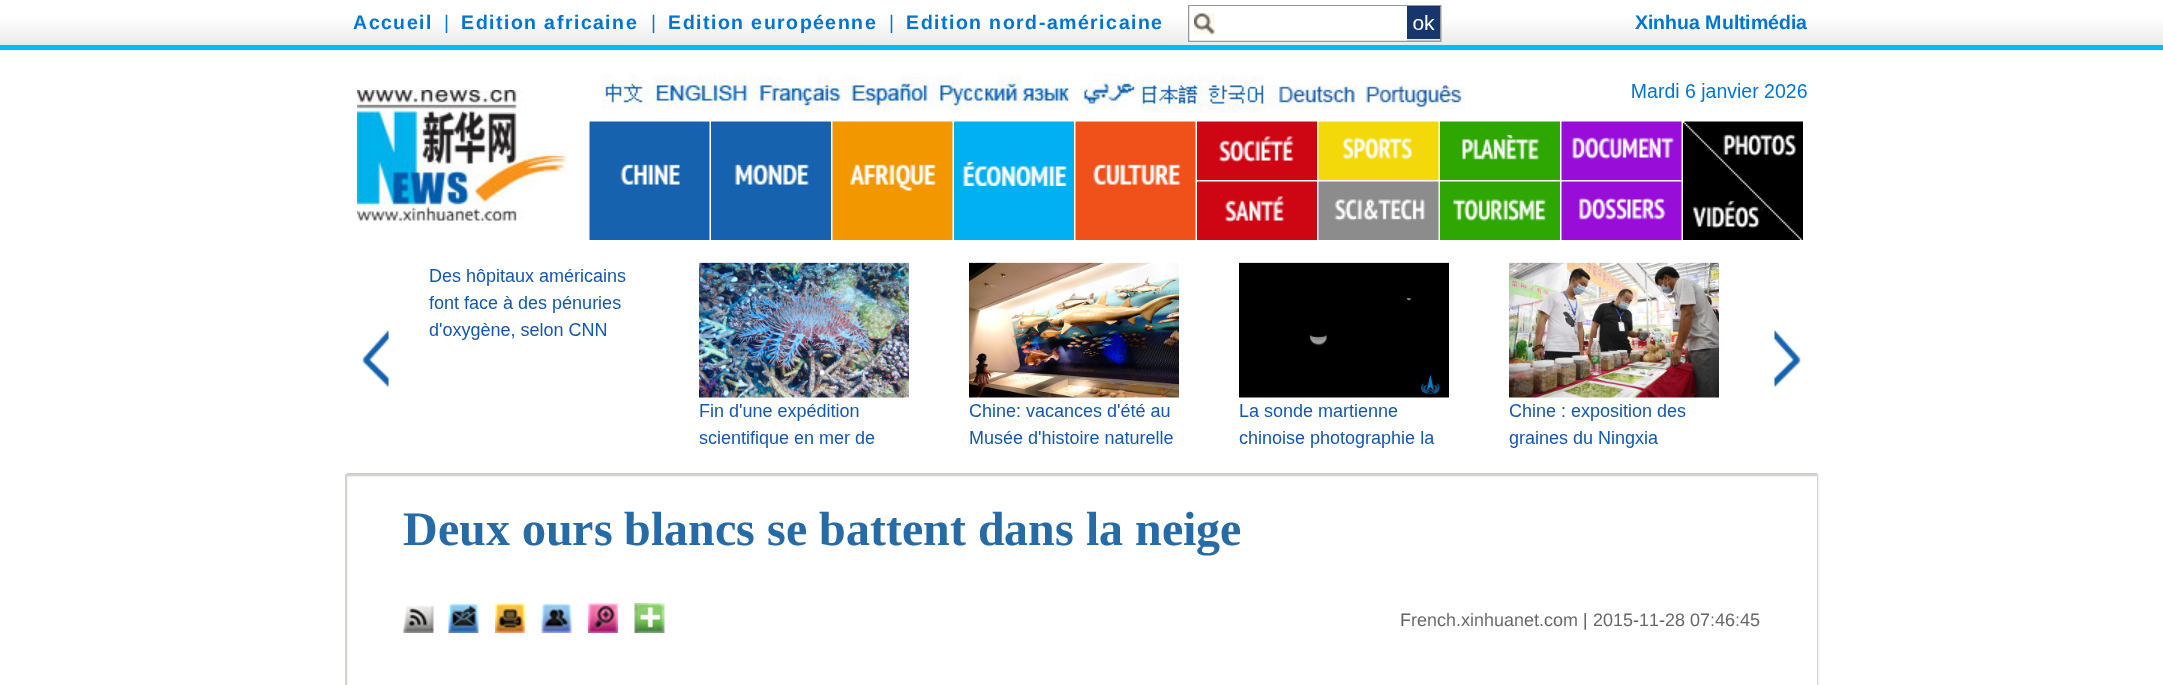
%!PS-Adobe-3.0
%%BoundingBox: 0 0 2163 685
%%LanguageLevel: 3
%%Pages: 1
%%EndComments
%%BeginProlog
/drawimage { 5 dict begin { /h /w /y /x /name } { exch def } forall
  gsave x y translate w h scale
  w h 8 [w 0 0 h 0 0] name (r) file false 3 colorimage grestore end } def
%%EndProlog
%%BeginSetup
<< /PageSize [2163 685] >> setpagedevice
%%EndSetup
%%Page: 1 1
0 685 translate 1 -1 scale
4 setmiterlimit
1 setgray
0 0 2163 685 rectfill
(images/1.raw) 0 3 2163 42 drawimage
0 0.733 0.996 setrgbcolor
0 45 2163 5 rectfill
(images/2.raw) 1188 5 254 37 drawimage
(images/3.raw) 357 73 1450 167 drawimage
(images/4.raw) 362 262 1439 186 drawimage
0.8 setgray
347 473 1470 1 rectfill
0.827 0.831 0.812 setrgbcolor
2 setlinewidth
346 475 1471 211 rectstroke
1 setgray
1816 476 1 209 rectfill
(images/5.raw) 403 605 31 28 drawimage
(images/6.raw) 448 603 31 30 drawimage
(images/7.raw) 495 603 30 30 drawimage
(images/8.raw) 541 603 31 30 drawimage
(images/9.raw) 588 603 30 30 drawimage
(images/10.raw) 634 603 31 30 drawimage
/LiberationSans-Bold [19.5 0 0 -19.5 0 0] selectfont
0.004 0.459 0.812 setrgbcolor
353 29 moveto 1.5 0 (Accueil) ashow
/LiberationSans-Regular [19.5 0 0 -19.5 0 0] selectfont
444 29 moveto (|) show
/LiberationSans-Bold [19.5 0 0 -19.5 0 0] selectfont
461 29 moveto 1.5 0 (Edition africaine) ashow
/LiberationSans-Regular [19.5 0 0 -19.5 0 0] selectfont
651 29 moveto (|) show
/LiberationSans-Bold [19.5 0 0 -19.5 0 0] selectfont
668 29 moveto 1.5 0 (Edition européenne) ashow
/LiberationSans-Regular [19.5 0 0 -19.5 0 0] selectfont
889 29 moveto (|) show
/LiberationSans-Bold [19.5 0 0 -19.5 0 0] selectfont
906 29 moveto 1.5 0 (Edition nord-américaine) ashow
1635 29 moveto (Xinhua Multimédia) show
/LiberationSerif-Bold [48 0 0 -48 0 0] selectfont
0.149 0.42 0.651 setrgbcolor
403 545 moveto (Deux ours blancs se battent dans la neige) show
/LiberationSans-Regular [18 0 0 -18 0 0] selectfont
0.4 setgray
1400 626 moveto (French.xinhuanet.com | 2015-11-28 07:46:45) show
showpage
%%EOF
